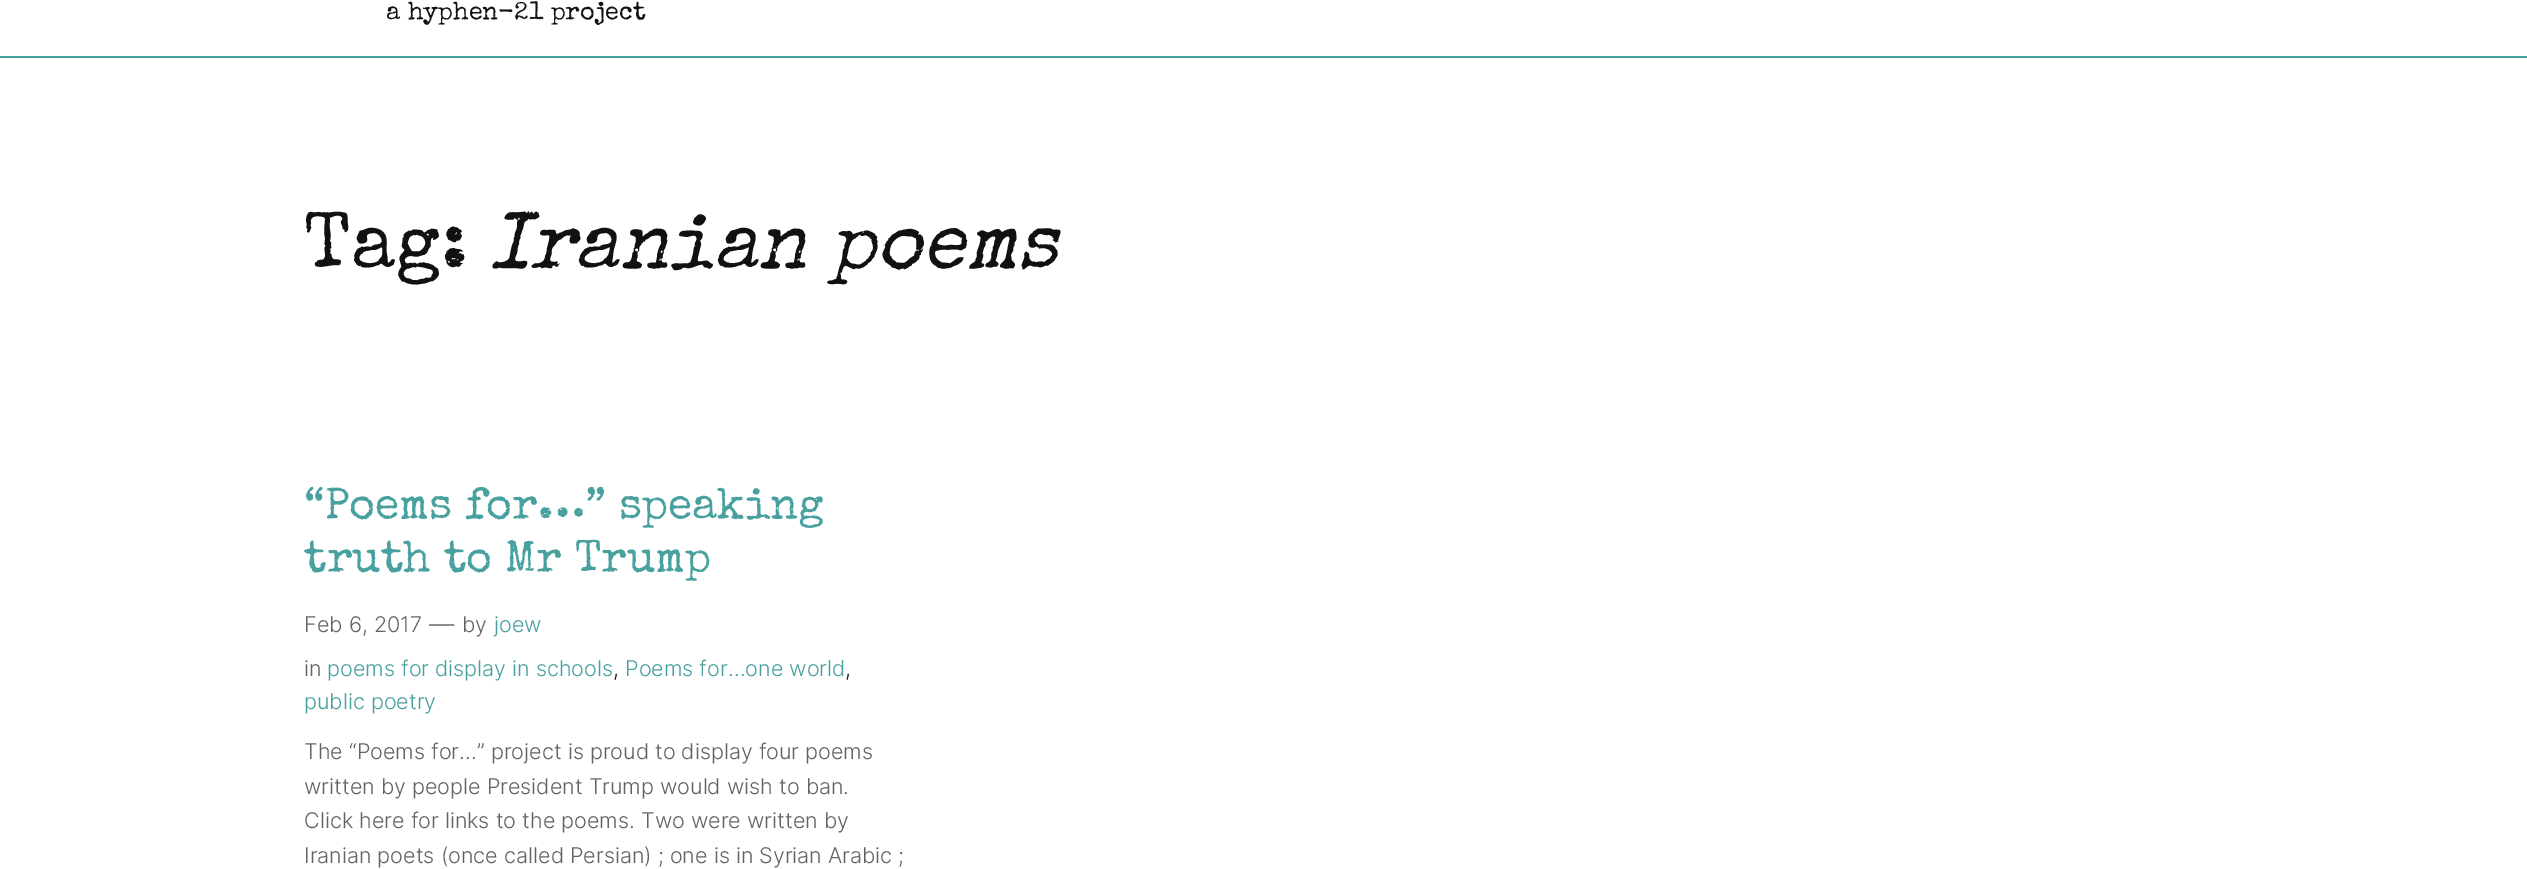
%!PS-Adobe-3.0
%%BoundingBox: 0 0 2527 869
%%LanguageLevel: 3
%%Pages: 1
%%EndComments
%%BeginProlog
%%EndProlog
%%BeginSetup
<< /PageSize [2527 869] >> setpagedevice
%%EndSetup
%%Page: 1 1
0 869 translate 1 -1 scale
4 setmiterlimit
1 setgray
0 0 2527 869 rectfill
0.282 0.631 0.624 setrgbcolor
0 56 2527 2 rectfill
/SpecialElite-Regular [25.25 0 0 -25.25 0 0] selectfont
0.067 setgray
386 19 moveto (a hyphen-21 project) show
/SpecialElite-Regular [78.5 0 0 -78.5 0 0] selectfont
304 267 moveto (Tag:) show
/SpecialElite-Italic [78.5 0 0 -78.5 0 0] selectfont
490 267 moveto (Iranian poems) show
/SpecialElite-Regular [44.4 0 0 -44.4 0 0] selectfont
0.282 0.631 0.624 setrgbcolor
304 518 moveto (“Poems for…” speaking) show
304 571 moveto (truth to Mr Trump) show
/Inter-Light [21.6 0 0 -21.6 0 0] selectfont
0.388 setgray
304 632 moveto (Feb 6, 2017) show
/Inter-Light [25.25 0 0 -25.25 0 0] selectfont
429 633 moveto (—) show
/Inter-Light [21.6 0 0 -21.6 0 0] selectfont
462 632 moveto (by) show
0.282 0.631 0.624 setrgbcolor
494 632 moveto (joew) show
0.388 setgray
304 676 moveto (in) show
0.282 0.631 0.624 setrgbcolor
327 676 moveto (poems for display in schools) show
0.067 setgray
613 676 moveto (,) show
0.282 0.631 0.624 setrgbcolor
625 676 moveto (Poems for…one world) show
0.067 setgray
845 676 moveto (,) show
0.282 0.631 0.624 setrgbcolor
304 709 moveto (public poetry) show
0.388 setgray
304 759 moveto (The “Poems for…” project is proud to display four poems) show
304 794 moveto (written by people President Trump would wish to ban.) show
304 828 moveto (Click here for links to the poems. Two were written by) show
304 863 moveto (Iranian poets \(once called Persian\) ; one is in Syrian Arabic ;) show
showpage
%%EOF
